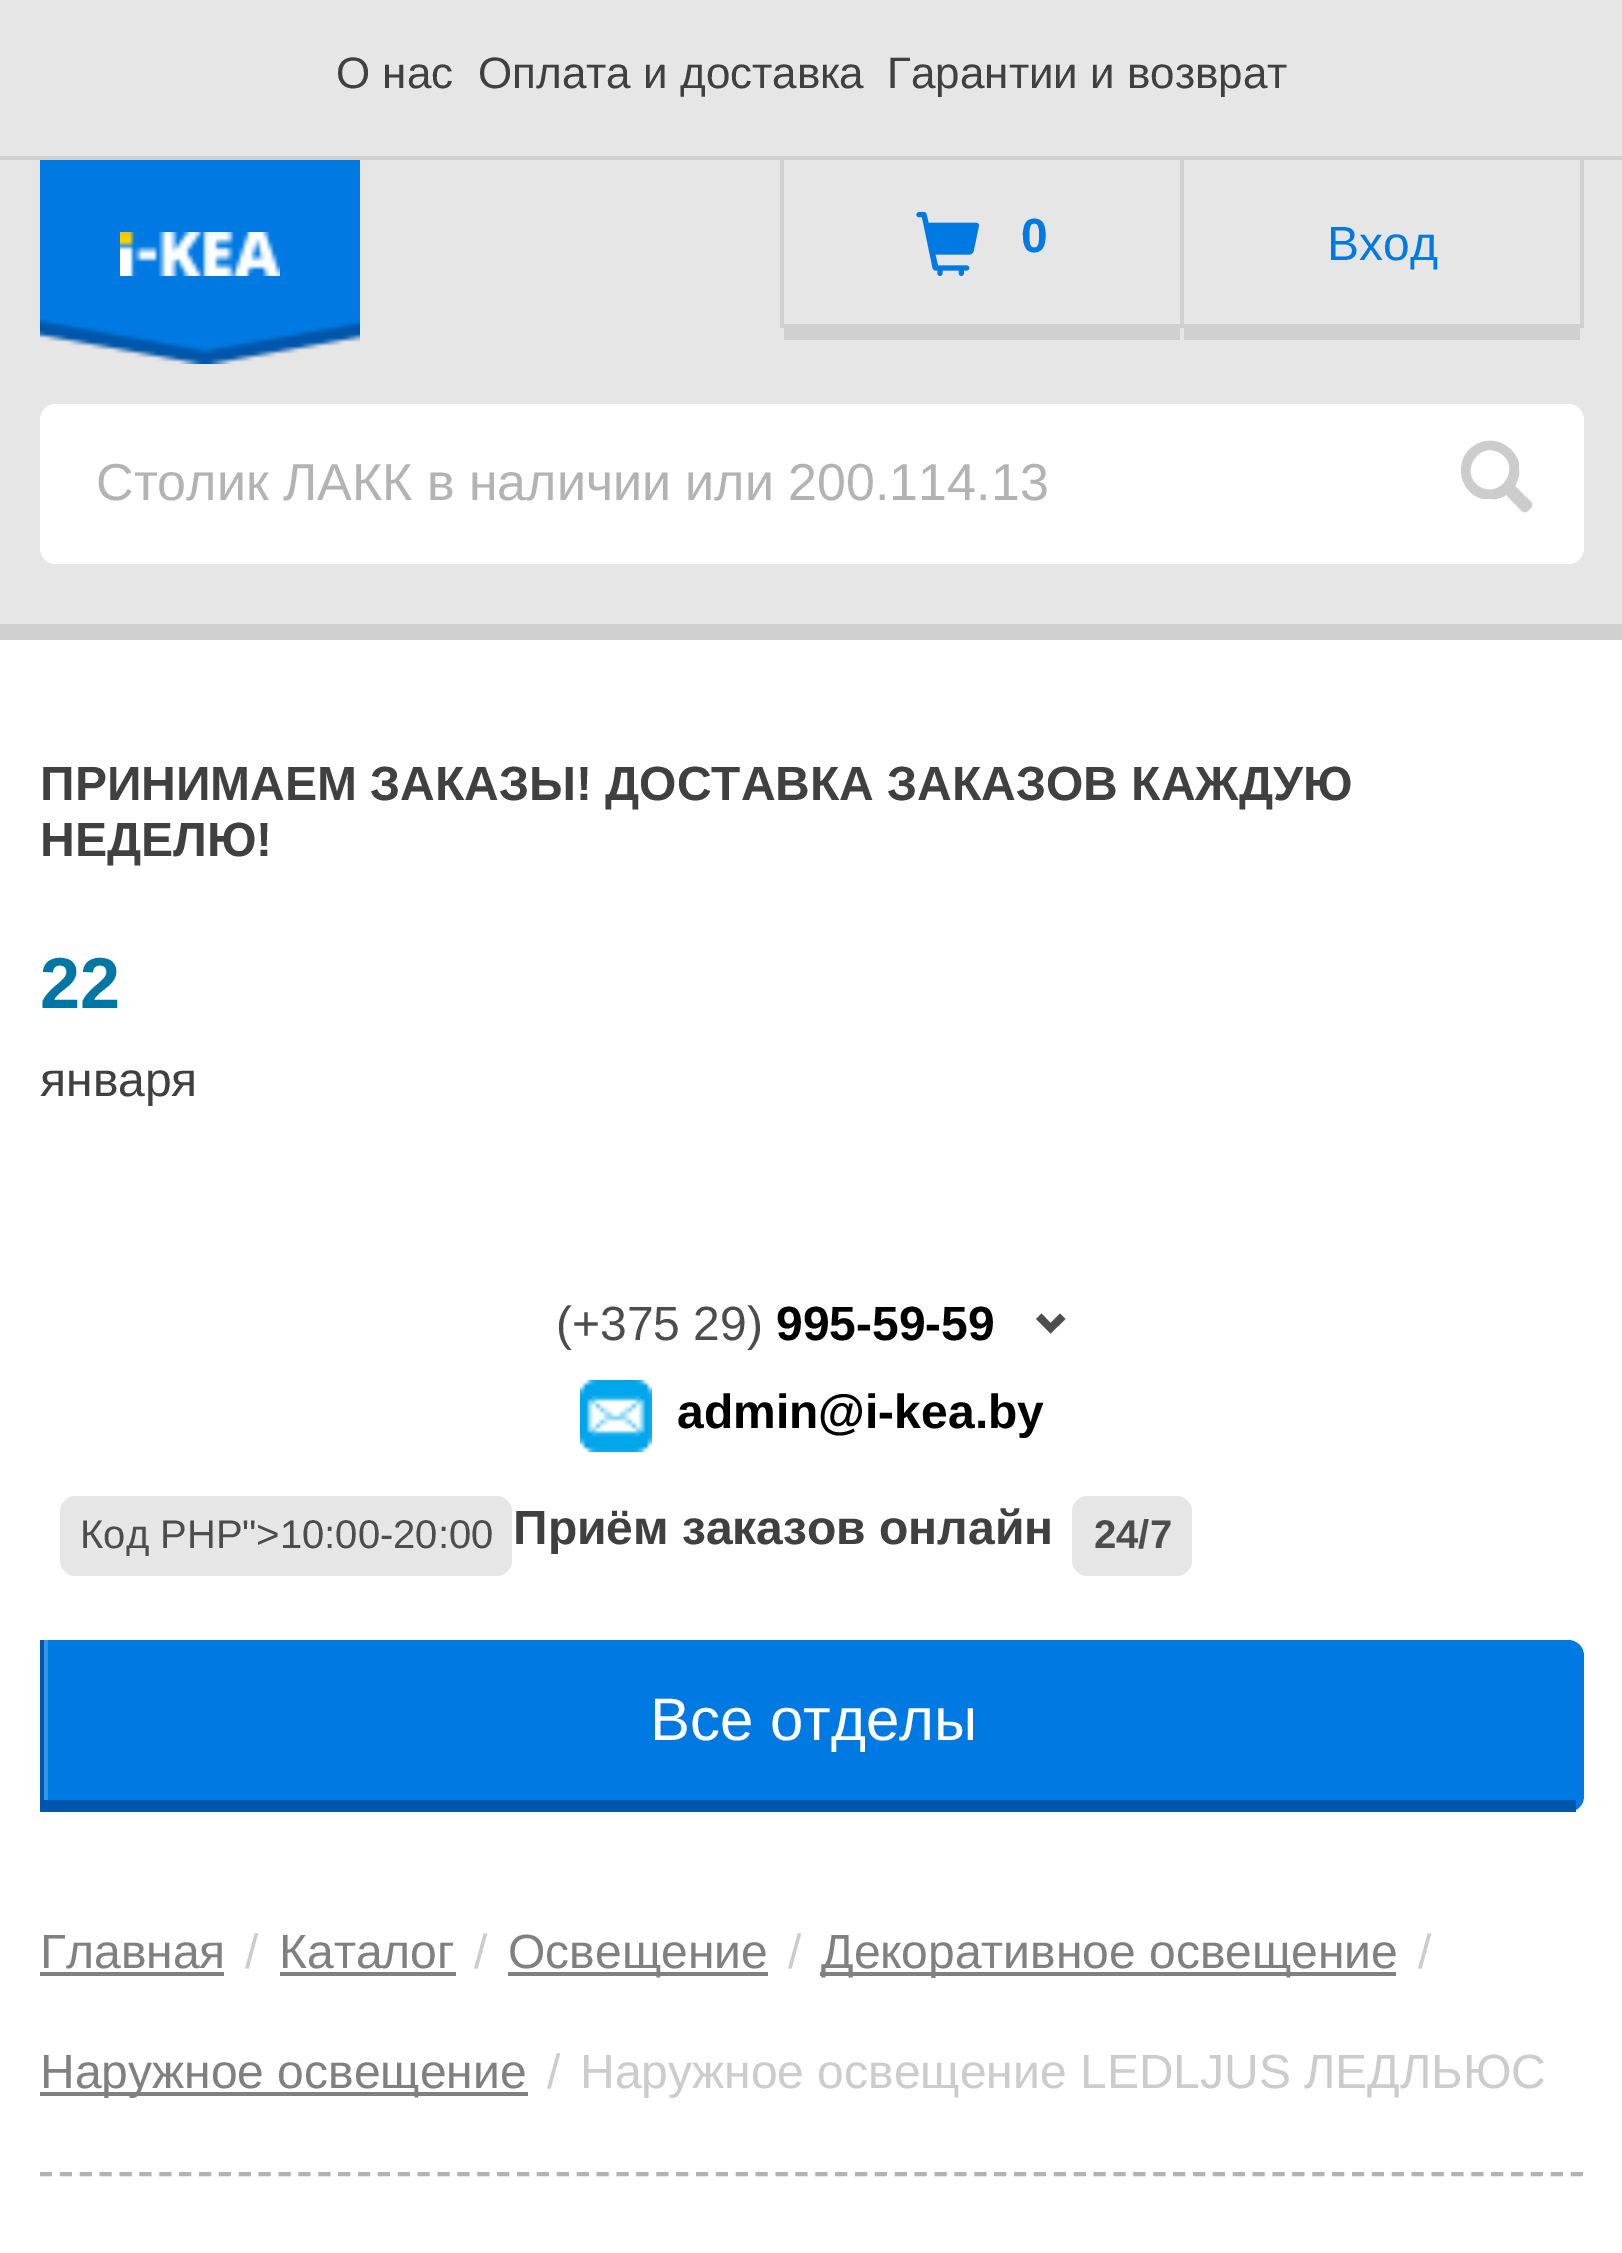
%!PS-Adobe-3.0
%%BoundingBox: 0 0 1622 2253
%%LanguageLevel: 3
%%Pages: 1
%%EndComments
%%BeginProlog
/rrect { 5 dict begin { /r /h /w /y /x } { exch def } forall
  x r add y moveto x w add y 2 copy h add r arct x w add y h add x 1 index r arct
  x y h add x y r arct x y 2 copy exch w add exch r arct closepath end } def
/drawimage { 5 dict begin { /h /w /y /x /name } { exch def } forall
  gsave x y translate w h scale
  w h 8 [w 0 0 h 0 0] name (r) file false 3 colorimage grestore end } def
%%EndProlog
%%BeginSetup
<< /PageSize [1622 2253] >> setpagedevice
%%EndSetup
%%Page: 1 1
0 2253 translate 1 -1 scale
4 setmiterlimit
1 setgray
0 0 1622 2253 rectfill
0.902 setgray
0 0 1622 156 rectfill
0.816 setgray
0 156 1622 4 rectfill
0.902 setgray
0 160 1622 464 rectfill
0.816 setgray
0 624 1622 16 rectfill
(images/1.raw) 40 160 320 204 drawimage
(images/2.raw) 120 232 160 44 drawimage
1180 160 4 168 rectfill
780 160 4 168 rectfill
(images/3.raw) 916 212 64 64 drawimage
784 324 396 16 rectfill
1580 160 4 168 rectfill
1184 324 396 16 rectfill
1 setgray
40 404 1544 160 16 rrect fill
0.8 setgray
newpath 1479 443 moveto 1495 436 1514 446 1519 463 curveto 1519 470 lineto 1520 475 1517 482 1515 486 curveto 1526 497 lineto 1531 502 1535 504 1530 509 curveto 1524 515 1523 512 1517 506 curveto 1506 495 lineto 1502 498 1495 500 1490 499 curveto 1483 499 lineto 1456 492 1453 454 1479 443 curveto closepath 1500 453 moveto 1478 440 1458 474 1480 487 curveto 1502 499 1522 466 1500 453 curveto closepath fill
0.302 setgray
newpath 1065.5 1319 moveto 1050.5 1333.5 lineto 1036 1319 lineto 1041.5 1313.5 lineto 1050.5 1323 lineto 1060 1313.5 lineto closepath fill
(images/4.raw) 580 1380 72 72 drawimage
0.902 setgray
60 1496 452 80 16 rrect fill
1072 1496 120 80 16 rrect fill
0 0.478 0.886 setrgbcolor
newpath 40 1640 moveto 1568 1640 lineto 1577 1640 1584 1647 1584 1656 curveto 1584 1796 lineto 1584 1805 1577 1812 1568 1812 curveto 40 1812 lineto closepath fill
0 0.337 0.667 setrgbcolor
44 1800 1532 12 rectfill
40 1640 4 172 rectfill
0.2 0.584 0.91 setrgbcolor
44 1640 4 160 rectfill
0.502 setgray
40 1972 184 4 rectfill
280 1972 176 4 rectfill
508 1972 260 4 rectfill
820 1972 576 4 rectfill
40 2092 488 4 rectfill
0.702 setgray
4 setlinewidth
[12 7.88] 0 setdash
newpath 40 2174 moveto 1584 2174 lineto stroke
/LiberationSans-Regular [44 0 0 -44 0 0] selectfont
0.251 setgray
336 88 moveto (О нас) show
478 88 moveto (Оплата и доставка) show
887 88 moveto (Гарантии и возврат) show
/LiberationSans-Bold [48 0 0 -48 0 0] selectfont
0 0.478 0.886 setrgbcolor
1021 252 moveto (0) show
/LiberationSans-Regular [48 0 0 -48 0 0] selectfont
1327 260 moveto (Вход) show
/LiberationSans-Regular [52 0 0 -52 0 0] selectfont
0.702 setgray
96 500 moveto (Столик ЛАКК в наличии или 200.114.13) show
/LiberationSans-Bold [48 0 0 -48 0 0] selectfont
0.251 setgray
40 800 moveto (ПРИНИМАЕМ ЗАКАЗЫ! ДОСТАВКА ЗАКАЗОВ КАЖДУЮ) show
40 856 moveto (НЕДЕЛЮ!) show
/LiberationSans-Bold [72 0 0 -72 0 0] selectfont
0 0.463 0.643 setrgbcolor
40 1008 moveto (22) show
/LiberationSans-Regular [48 0 0 -48 0 0] selectfont
0.251 setgray
40 1096 moveto (января) show
0.302 setgray
556 1340 moveto (\(+375 29\)) show
/LiberationSans-Bold [48 0 0 -48 0 0] selectfont
0 setgray
776 1340 moveto (995-59-59) show
677 1428 moveto (admin@i-kea.by) show
/LiberationSans-Regular [40 0 0 -40 0 0] selectfont
0.302 setgray
80 1548 moveto (Код PHP">10:00-20:00) show
/LiberationSans-Bold [48 0 0 -48 0 0] selectfont
0.251 setgray
513 1544 moveto (Приём заказов онлайн) show
/LiberationSans-Bold [40 0 0 -40 0 0] selectfont
0.302 setgray
1094 1548 moveto (24/7) show
/LiberationSans-Regular [60 0 0 -60 0 0] selectfont
1 setgray
650 1740 moveto (Все отделы) show
/LiberationSans-Regular [48 0 0 -48 0 0] selectfont
0.502 setgray
40 1968 moveto (Главная) show
0.8 setgray
245 1968 moveto (/) show
0.502 setgray
279 1968 moveto (Каталог) show
0.8 setgray
474 1968 moveto (/) show
0.502 setgray
508 1968 moveto (Освещение) show
0.8 setgray
788 1968 moveto (/) show
0.502 setgray
821 1968 moveto (Декоративное освещение) show
0.8 setgray
1418 1968 moveto (/) show
0.502 setgray
40 2088 moveto (Наружное освещение) show
0.8 setgray
547 2088 moveto (/) show
580 2088 moveto (Наружное освещение LEDLJUS ЛЕДЛЬЮС) show
showpage
%%EOF
